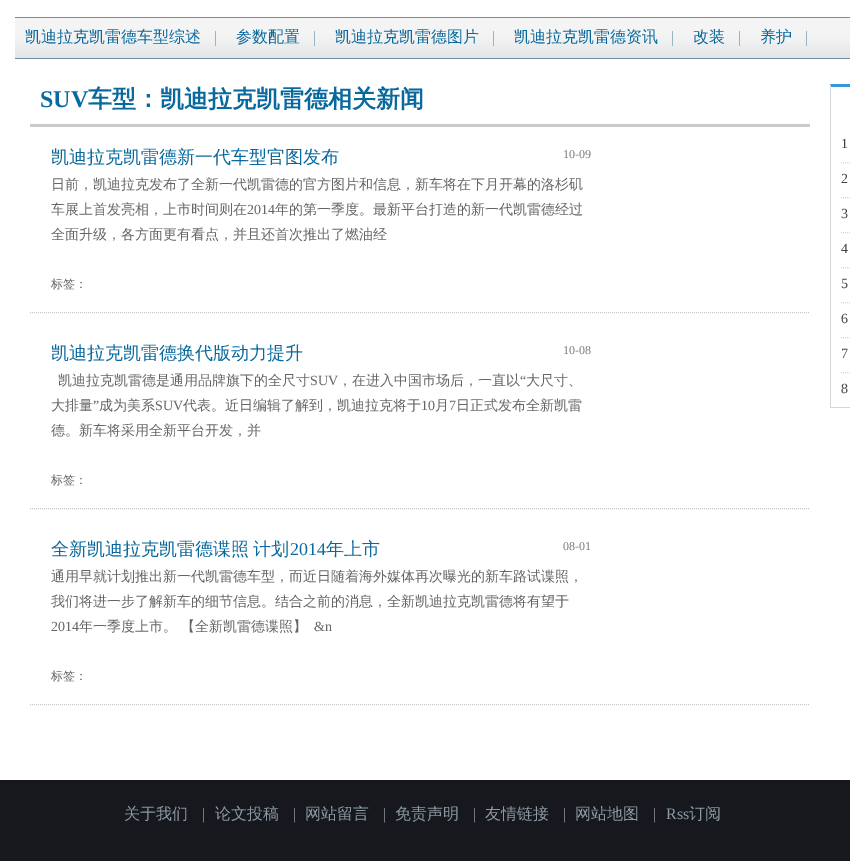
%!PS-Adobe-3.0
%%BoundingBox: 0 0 850 861
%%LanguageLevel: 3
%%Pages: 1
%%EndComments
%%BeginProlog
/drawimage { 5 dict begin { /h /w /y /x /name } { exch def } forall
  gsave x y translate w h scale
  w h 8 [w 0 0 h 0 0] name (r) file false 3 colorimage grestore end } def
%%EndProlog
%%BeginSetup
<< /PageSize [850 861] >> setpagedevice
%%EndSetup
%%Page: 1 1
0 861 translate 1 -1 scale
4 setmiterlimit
1 setgray
0 0 850 861 rectfill
0.451 0.553 0.612 setrgbcolor
15 17 835 1 rectfill
(images/1.raw) 15 18 835 40 drawimage
15 58 835 1 rectfill
(images/2.raw) 215 31 1 15 drawimage
(images/2.raw) 314 31 1 15 drawimage
(images/2.raw) 493 31 1 15 drawimage
(images/2.raw) 672 31 1 15 drawimage
(images/2.raw) 739 31 1 15 drawimage
(images/2.raw) 806 31 1 15 drawimage
0.792 setgray
30 124 780 3 rectfill
0.776 setgray
[1 1] 0 setdash
newpath 30 312.5 moveto 810 312.5 lineto stroke
newpath 30 508.5 moveto 810 508.5 lineto stroke
newpath 30 704.5 moveto 810 704.5 lineto stroke
0.204 0.596 0.859 setrgbcolor
newpath 830 84 moveto 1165 84 lineto 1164 87 lineto 831 87 lineto closepath fill
0.839 0.843 0.859 setrgbcolor
830 407 20 1 rectfill
newpath 830 408 moveto 830 84 lineto 831 87 lineto 831 407 lineto closepath fill
newpath 841 162.5 moveto 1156 162.5 lineto stroke
newpath 841 197.5 moveto 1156 197.5 lineto stroke
newpath 841 232.5 moveto 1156 232.5 lineto stroke
newpath 841 267.5 moveto 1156 267.5 lineto stroke
newpath 841 302.5 moveto 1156 302.5 lineto stroke
newpath 841 337.5 moveto 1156 337.5 lineto stroke
newpath 841 372.5 moveto 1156 372.5 lineto stroke
0.09 0.09 0.118 setrgbcolor
0 780 850 81 rectfill
/WenQuanYiZenHei-Medium [16 0 0 -16 0 0] selectfont
0.027 0.412 0.616 setrgbcolor
25 42 moveto (凯迪拉克凯雷德车型综述) show
236 42 moveto (参数配置) show
335 42 moveto (凯迪拉克凯雷德图片) show
514 42 moveto (凯迪拉克凯雷德资讯) show
693 42 moveto (改装) show
760 42 moveto (养护) show
/LiberationSerif-Bold [24 0 0 -24 0 0] selectfont
40 107 moveto (SUV) show
/WenQuanYiZenHei-Bold [24 0 0 -24 0 0] selectfont
88 107 moveto (车型：凯迪拉克凯雷德相关新闻) show
/WenQuanYiZenHei-Medium [18 0 0 -18 0 0] selectfont
51 163 moveto (凯迪拉克凯雷德新一代车型官图发布) show
/LiberationSerif-Regular [12 0 0 -12 0 0] selectfont
0.475 setgray
563 158 moveto (10-09) show
/WenQuanYiZenHei-Medium [14 0 0 -14 0 0] selectfont
0.396 setgray
51 189 moveto (日前，凯迪拉克发布了全新一代凯雷德的官方图片和信息，新车将在下月开幕的洛杉矶) show
51 214 moveto (车展上首发亮相，上市时间则在) show
/LiberationSerif-Regular [14 0 0 -14 0 0] selectfont
247 214 moveto (2014) show
/WenQuanYiZenHei-Medium [14 0 0 -14 0 0] selectfont
275 214 moveto (年的第一季度。最新平台打造的新一代凯雷德经过) show
51 239 moveto (全面升级，各方面更有看点，并且还首次推出了燃油经) show
/WenQuanYiZenHei-Medium [12 0 0 -12 0 0] selectfont
51 288 moveto (标签：) show
/WenQuanYiZenHei-Medium [18 0 0 -18 0 0] selectfont
0.027 0.412 0.616 setrgbcolor
51 359 moveto (凯迪拉克凯雷德换代版动力提升) show
/LiberationSerif-Regular [12 0 0 -12 0 0] selectfont
0.475 setgray
563 354 moveto (10-08) show
/WenQuanYiZenHei-Medium [14 0 0 -14 0 0] selectfont
0.396 setgray
58 385 moveto (凯迪拉克凯雷德是通用品牌旗下的全尺寸) show
/LiberationSerif-Regular [14 0 0 -14 0 0] selectfont
310 385 moveto (SUV) show
/WenQuanYiZenHei-Medium [14 0 0 -14 0 0] selectfont
338 385 moveto (，在进入中国市场后，一直以) show
/LiberationSerif-Regular [14 0 0 -14 0 0] selectfont
520 385 moveto (“) show
/WenQuanYiZenHei-Medium [14 0 0 -14 0 0] selectfont
526 385 moveto (大尺寸、) show
51 410 moveto (大排量) show
/LiberationSerif-Regular [14 0 0 -14 0 0] selectfont
93 410 moveto (”) show
/WenQuanYiZenHei-Medium [14 0 0 -14 0 0] selectfont
99 410 moveto (成为美系) show
/LiberationSerif-Regular [14 0 0 -14 0 0] selectfont
155 410 moveto (SUV) show
/WenQuanYiZenHei-Medium [14 0 0 -14 0 0] selectfont
183 410 moveto (代表。近日编辑了解到，凯迪拉克将于) show
/LiberationSerif-Regular [14 0 0 -14 0 0] selectfont
421 410 moveto (10) show
/WenQuanYiZenHei-Medium [14 0 0 -14 0 0] selectfont
435 410 moveto (月) show
/LiberationSerif-Regular [14 0 0 -14 0 0] selectfont
449 410 moveto (7) show
/WenQuanYiZenHei-Medium [14 0 0 -14 0 0] selectfont
456 410 moveto (日正式发布全新凯雷) show
51 435 moveto (德。新车将采用全新平台开发，并) show
/WenQuanYiZenHei-Medium [12 0 0 -12 0 0] selectfont
51 484 moveto (标签：) show
/WenQuanYiZenHei-Medium [18 0 0 -18 0 0] selectfont
0.027 0.412 0.616 setrgbcolor
51 555 moveto -1 0 32 (全新凯迪拉克凯雷德谍照 计划) widthshow
/LiberationSerif-Regular [18 0 0 -18 0 0] selectfont
290 555 moveto (2014) show
/WenQuanYiZenHei-Medium [18 0 0 -18 0 0] selectfont
326 555 moveto (年上市) show
/LiberationSerif-Regular [12 0 0 -12 0 0] selectfont
0.475 setgray
563 550 moveto (08-01) show
/WenQuanYiZenHei-Medium [14 0 0 -14 0 0] selectfont
0.396 setgray
51 581 moveto (通用早就计划推出新一代凯雷德车型，而近日随着海外媒体再次曝光的新车路试谍照，) show
51 606 moveto (我们将进一步了解新车的细节信息。结合之前的消息，全新凯迪拉克凯雷德将有望于) show
/LiberationSerif-Regular [14 0 0 -14 0 0] selectfont
51 631 moveto (2014) show
/WenQuanYiZenHei-Medium [14 0 0 -14 0 0] selectfont
79 631 moveto (年一季度上市。) show
181 631 moveto (【全新凯雷德谍照】) show
/LiberationSerif-Regular [14 0 0 -14 0 0] selectfont
314 631 moveto (&n) show
/WenQuanYiZenHei-Medium [12 0 0 -12 0 0] selectfont
51 680 moveto (标签：) show
/LiberationSerif-Regular [14 0 0 -14 0 0] selectfont
0.263 setgray
841 148 moveto (1) show
841 183 moveto (2) show
841 218 moveto (3) show
841 253 moveto (4) show
841 288 moveto (5) show
841 323 moveto (6) show
841 358 moveto (7) show
841 393 moveto (8) show
/WenQuanYiZenHei-Medium [16 0 0 -16 0 0] selectfont
0.545 0.608 0.639 setrgbcolor
124 819 moveto (关于我们) show
/LiberationSerif-Regular [16 0 0 -16 0 0] selectfont
202 819 moveto (|) show
/WenQuanYiZenHei-Medium [16 0 0 -16 0 0] selectfont
215 819 moveto (论文投稿) show
/LiberationSerif-Regular [16 0 0 -16 0 0] selectfont
293 819 moveto (|) show
/WenQuanYiZenHei-Medium [16 0 0 -16 0 0] selectfont
305 819 moveto (网站留言) show
/LiberationSerif-Regular [16 0 0 -16 0 0] selectfont
383 819 moveto (|) show
/WenQuanYiZenHei-Medium [16 0 0 -16 0 0] selectfont
395 819 moveto (免责声明) show
/LiberationSerif-Regular [16 0 0 -16 0 0] selectfont
473 819 moveto (|) show
/WenQuanYiZenHei-Medium [16 0 0 -16 0 0] selectfont
485 819 moveto (友情链接) show
/LiberationSerif-Regular [16 0 0 -16 0 0] selectfont
563 819 moveto (|) show
/WenQuanYiZenHei-Medium [16 0 0 -16 0 0] selectfont
575 819 moveto (网站地图) show
/LiberationSerif-Regular [16 0 0 -16 0 0] selectfont
653 819 moveto (|) show
666 819 moveto (Rss) show
/WenQuanYiZenHei-Medium [16 0 0 -16 0 0] selectfont
689 819 moveto (订阅) show
showpage
%%EOF
